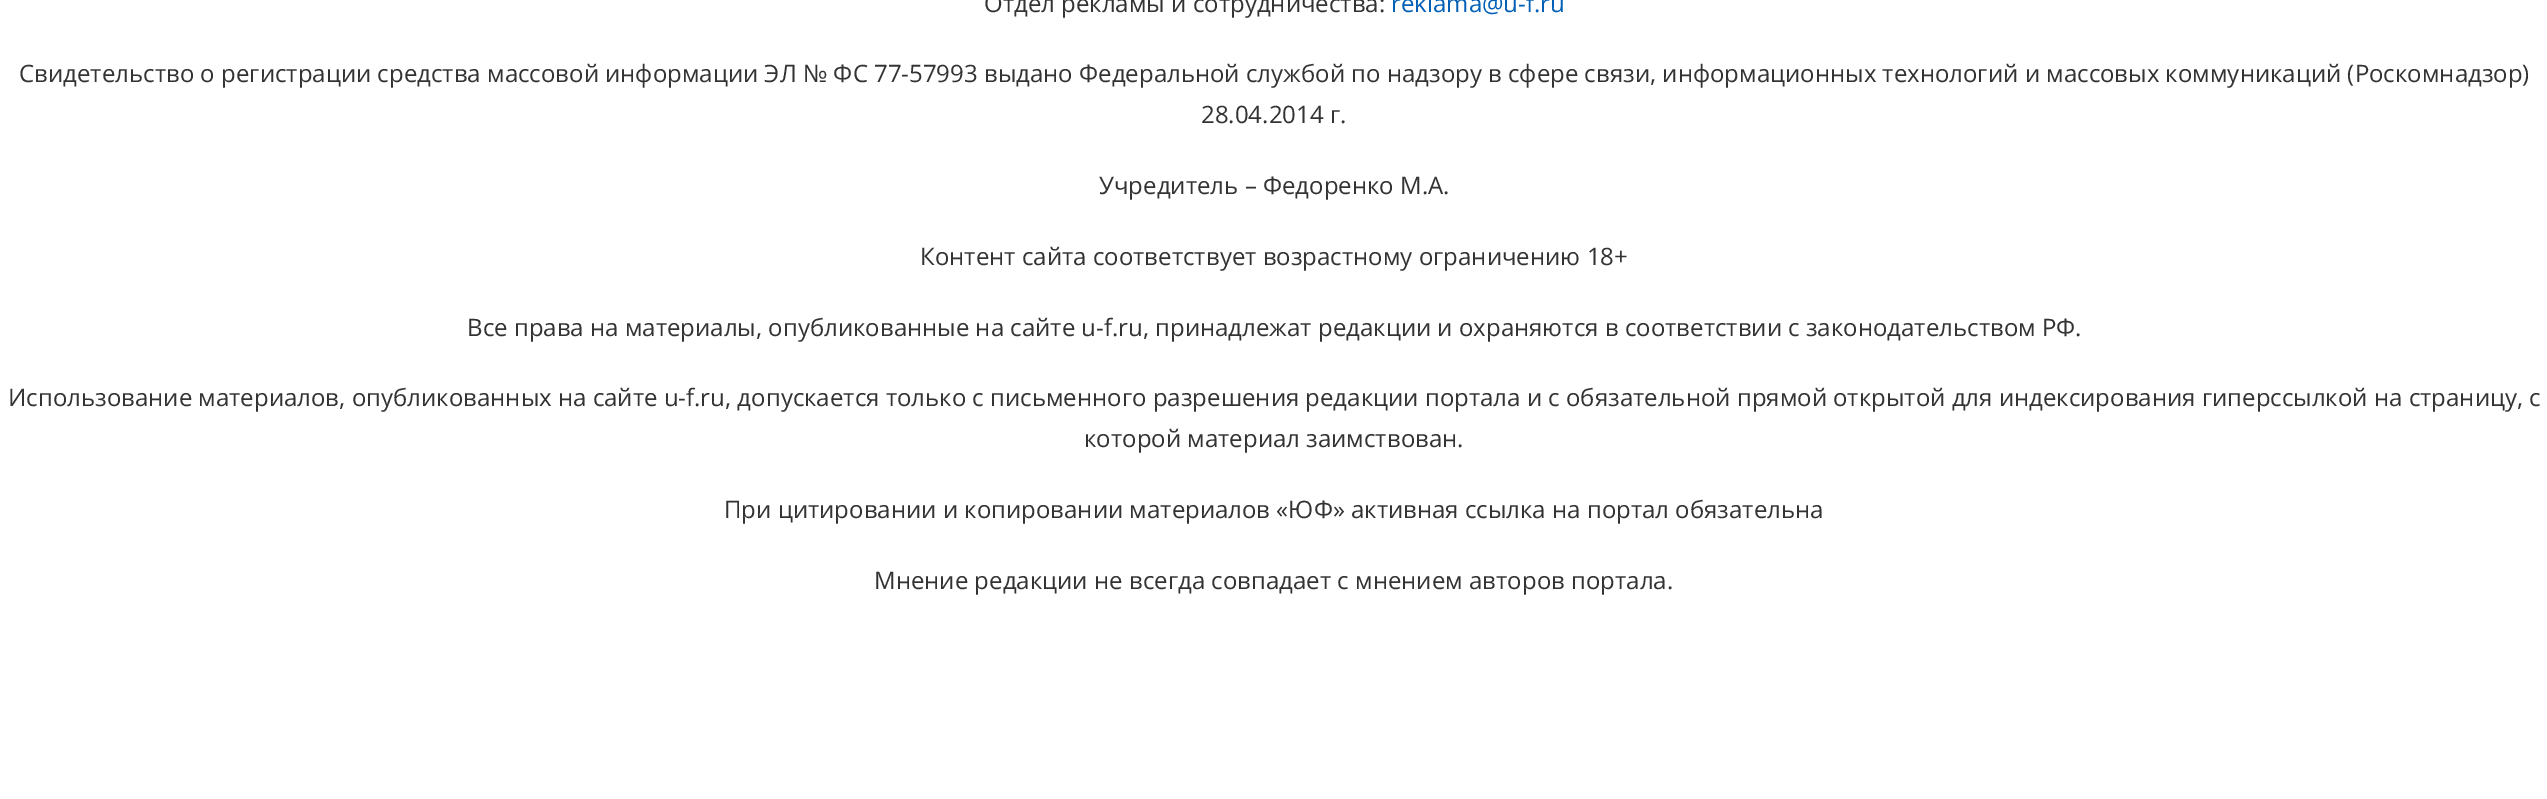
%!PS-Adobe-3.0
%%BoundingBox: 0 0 2547 799
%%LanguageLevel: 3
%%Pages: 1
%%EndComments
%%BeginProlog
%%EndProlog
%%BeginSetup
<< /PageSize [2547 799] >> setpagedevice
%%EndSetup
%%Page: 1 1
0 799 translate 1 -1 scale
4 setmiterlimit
1 setgray
0 0 2547 799 rectfill
/OpenSans-Regular [24 0 0 -24 0 0] selectfont
0.2 setgray
984 12 moveto (Отдел рекламы и сотрудничества:) show
0.004 0.373 0.714 setrgbcolor
1391 12 moveto (reklama@u-f.ru) show
0.2 setgray
19 82 moveto (Свидетельство о регистрации средства массовой информации ЭЛ № ФС 77-57993 выдано Федеральной службой по надзору в сфере связи, информационных технологий и массовых коммуникаций \(Роскомнадзор\)) show
1201 123 moveto (28.04.2014 г.) show
1099 194 moveto (Учредитель – Федоренко М.А.) show
920 265 moveto (Контент сайта соответствует возрастному ограничению 18+) show
467 336 moveto (Все права на материалы, опубликованные на сайте u-f.ru, принадлежат редакции и охраняются в соответствии с законодательством РФ.) show
8 406 moveto (Использование материалов, опубликованных на сайте u-f.ru, допускается только с письменного разрешения редакции портала и с обязательной прямой открытой для индексирования гиперссылкой на страницу, с) show
1084 447 moveto (которой материал заимствован.) show
724 518 moveto (При цитировании и копировании материалов «ЮФ» активная ссылка на портал обязательна) show
874 589 moveto (Мнение редакции не всегда совпадает с мнением авторов портала.) show
showpage
%%EOF
